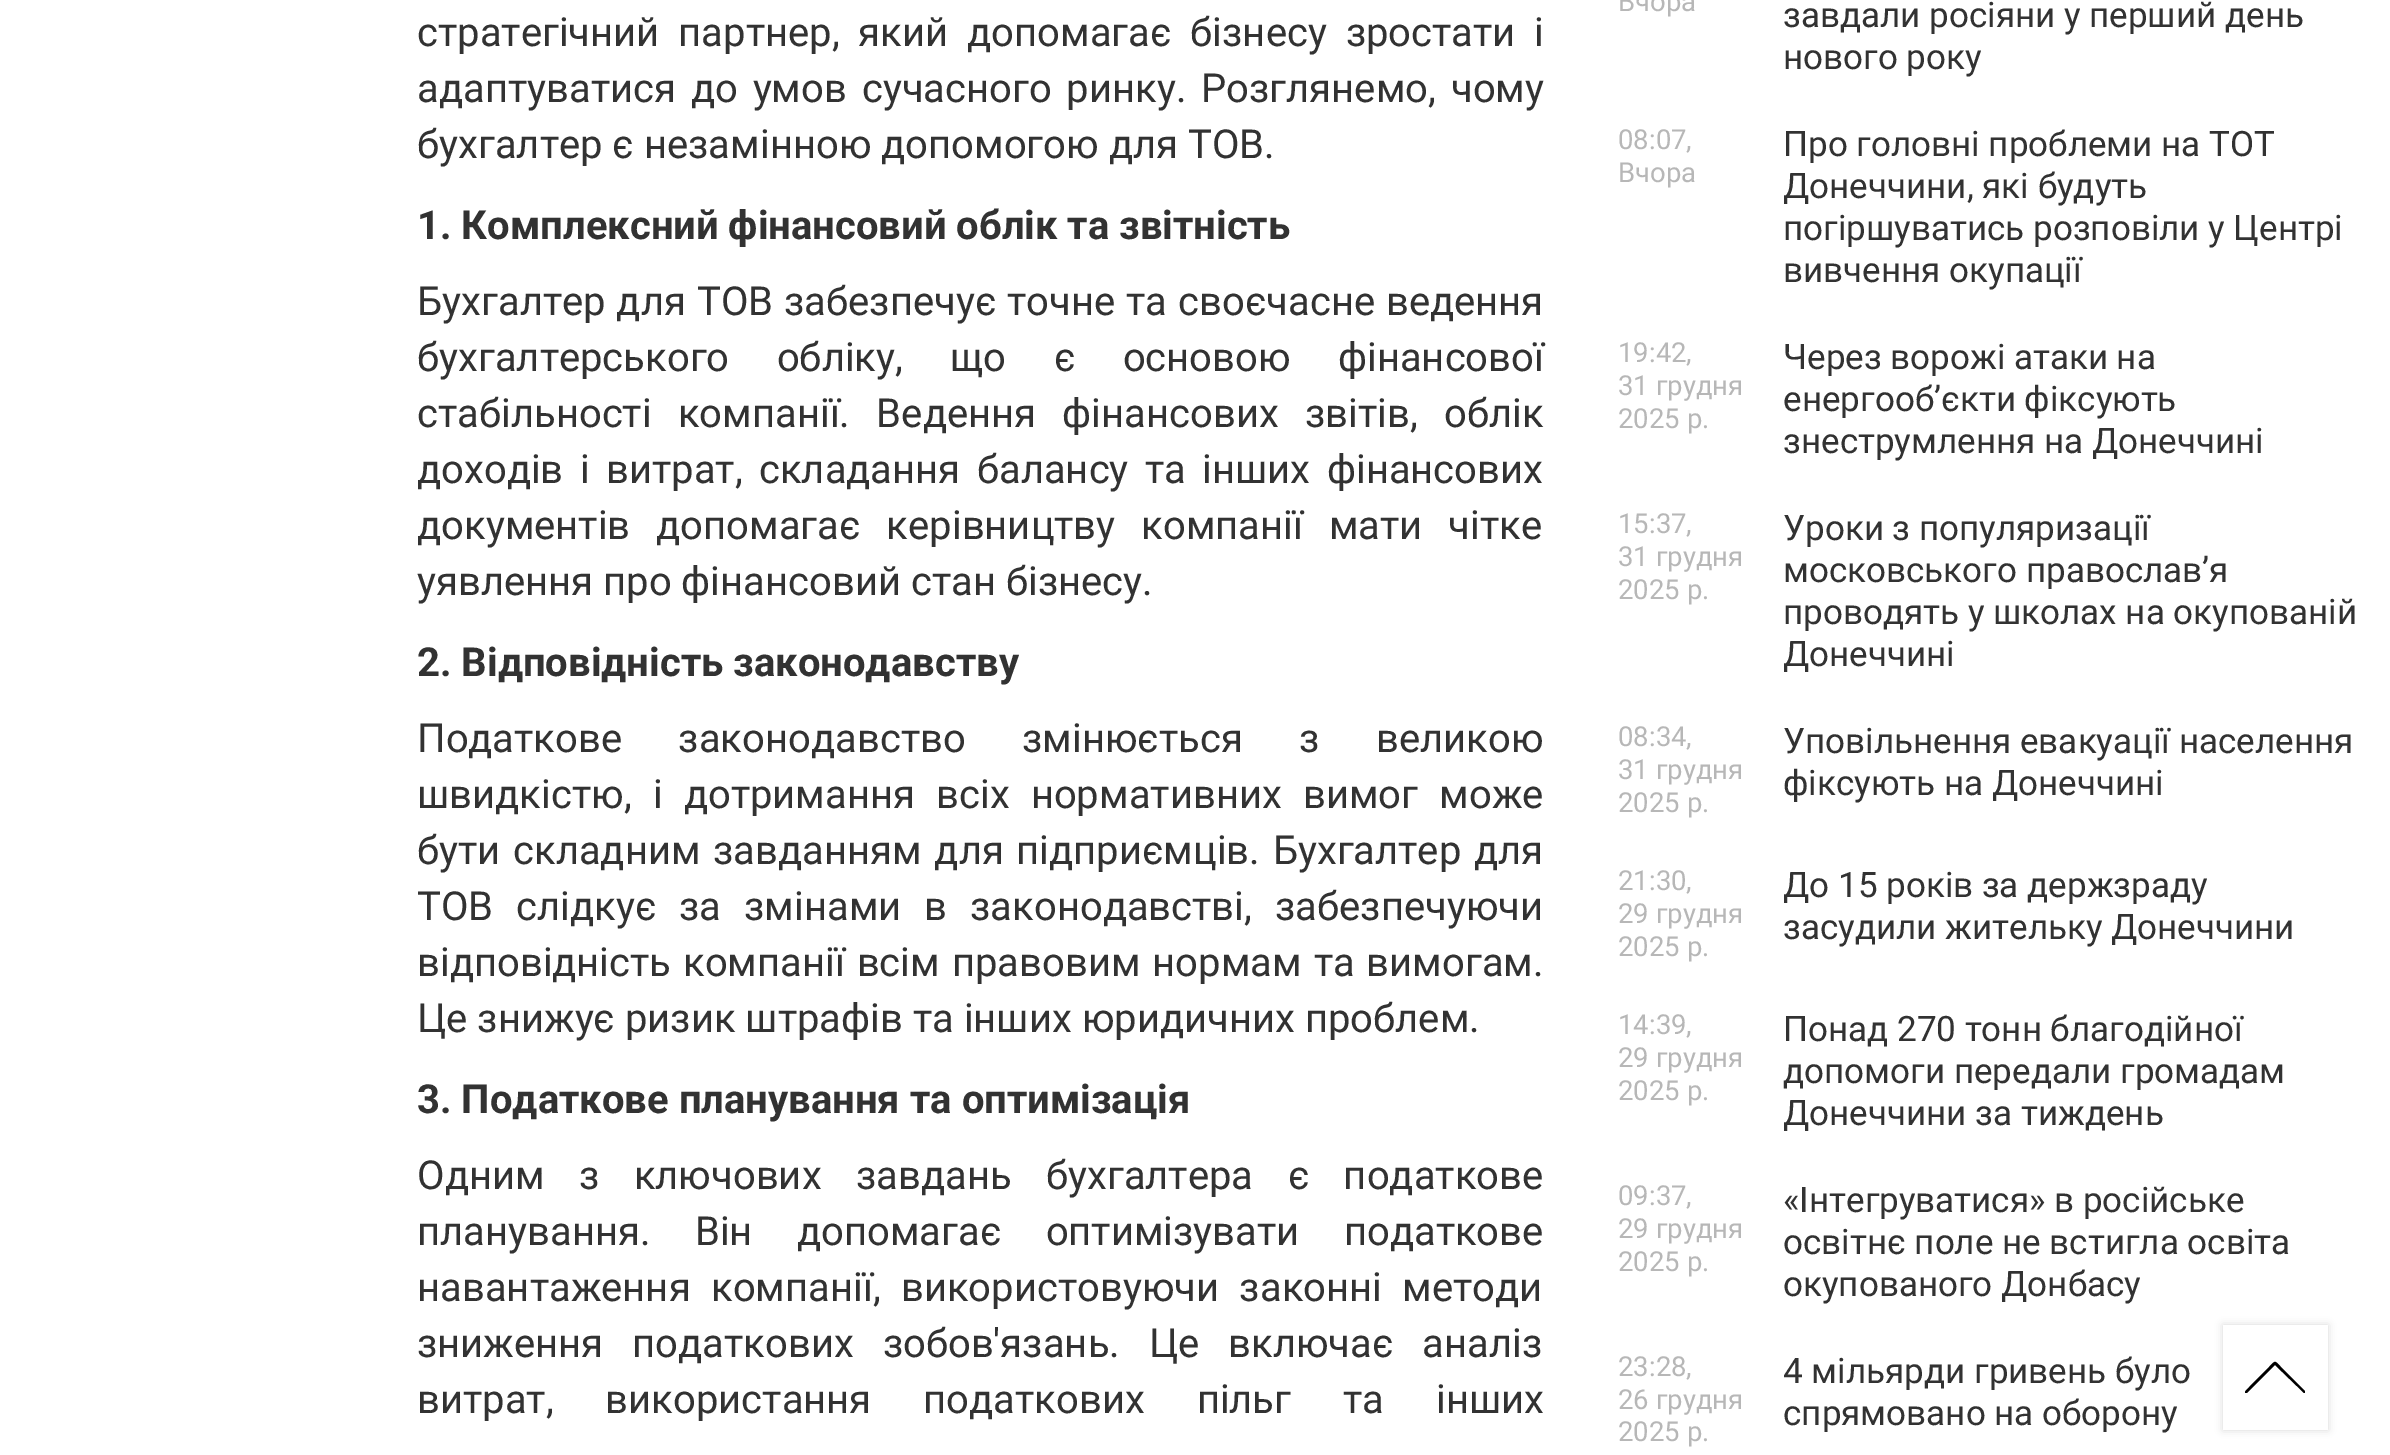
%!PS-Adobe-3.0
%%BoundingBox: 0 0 2390 1455
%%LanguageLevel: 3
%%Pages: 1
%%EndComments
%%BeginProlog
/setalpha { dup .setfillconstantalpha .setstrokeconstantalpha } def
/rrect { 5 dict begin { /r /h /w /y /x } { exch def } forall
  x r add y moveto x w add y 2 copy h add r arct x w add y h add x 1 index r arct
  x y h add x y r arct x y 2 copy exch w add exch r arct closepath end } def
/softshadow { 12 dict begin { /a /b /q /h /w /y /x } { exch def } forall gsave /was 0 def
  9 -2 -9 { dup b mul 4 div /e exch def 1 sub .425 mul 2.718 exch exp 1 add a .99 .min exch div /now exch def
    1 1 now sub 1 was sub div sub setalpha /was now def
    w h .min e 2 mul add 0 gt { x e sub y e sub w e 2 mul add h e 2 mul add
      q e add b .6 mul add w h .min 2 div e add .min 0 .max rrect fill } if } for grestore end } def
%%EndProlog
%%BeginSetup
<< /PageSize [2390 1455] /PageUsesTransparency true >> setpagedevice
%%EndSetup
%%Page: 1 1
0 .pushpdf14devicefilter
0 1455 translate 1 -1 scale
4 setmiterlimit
1 setgray
0 0 2390 1455 rectfill
0.388 setgray
2223 1325 105 105 0 4 0.25 softshadow
1 setgray
2223 1325 105 105 rectfill
gsave
2245 1348 60 60 rectclip
0 setgray
newpath 2305 1391 moveto 2281 1367 lineto 2274 1360 2276 1360 2269 1367 curveto 2250 1386 lineto 2250 1387 2244 1391 2245 1393 curveto 2246 1393 2246 1393 2247 1393 curveto 2275 1365 lineto 2304 1393 lineto 2305 1393 2306 1392 2305 1391 curveto closepath fill
grestore
/Roboto-Regular [40 0 0 -40 0 0] selectfont
0.196 setgray
417 46 moveto 9 0 32 (стратегічний партнер, який допомагає бізнесу зростати і) widthshow
417 102 moveto 5 0 32 (адаптуватися до умов сучасного ринку. Розглянемо, чому) widthshow
417 158 moveto (бухгалтер є незамінною допомогою для ТОВ.) show
/Roboto-Bold [40 0 0 -40 0 0] selectfont
417 239 moveto (1. Комплексний фінансовий облік та звітність) show
/Roboto-Regular [40 0 0 -40 0 0] selectfont
417 315 moveto 1 0 32 (Бухгалтер для ТОВ забезпечує точне та своєчасне ведення) widthshow
417 371 moveto 37.5 0 32 (бухгалтерського обліку, що є основою фінансової) widthshow
417 427 moveto 16.5 0 32 (стабільності компанії. Ведення фінансових звітів, облік) widthshow
417 483 moveto 6.5 0 32 (доходів і витрат, складання балансу та інших фінансових) widthshow
417 539 moveto 16 0 32 (документів допомагає керівництву компанії мати чітке) widthshow
417 595 moveto (уявлення про фінансовий стан бізнесу.) show
/Roboto-Bold [40 0 0 -40 0 0] selectfont
417 676 moveto (2. Відповідність законодавству) show
/Roboto-Regular [40 0 0 -40 0 0] selectfont
417 752 moveto 46.5 0 32 (Податкове законодавство змінюється з великою) widthshow
417 808 moveto 11.25 0 32 (швидкістю, і дотримання всіх нормативних вимог може) widthshow
417 864 moveto 2.75 0 32 (бути складним завданням для підприємців. Бухгалтер для) widthshow
417 920 moveto 13 0 32 (ТОВ слідкує за змінами в законодавстві, забезпечуючи) widthshow
417 976 moveto 2 0 32 (відповідність компанії всім правовим нормам та вимогам.) widthshow
417 1032 moveto (Це знижує ризик штрафів та інших юридичних проблем.) show
/Roboto-Bold [40 0 0 -40 0 0] selectfont
417 1113 moveto (3. Податкове планування та оптимізація) show
/Roboto-Regular [40 0 0 -40 0 0] selectfont
417 1189 moveto 24.5 0 32 (Одним з ключових завдань бухгалтера є податкове) widthshow
417 1245 moveto 34.5 0 32 (планування. Він допомагає оптимізувати податкове) widthshow
417 1301 moveto 10.5 0 32 (навантаження компанії, використовуючи законні методи) widthshow
417 1357 moveto 19 0 32 (зниження податкових зобов'язань. Це включає аналіз) widthshow
417 1413 moveto 42 0 32 (витрат, використання податкових пільг та інших) widthshow
/Roboto-Regular [27.5 0 0 -27.5 0 0] selectfont
0.718 setgray
1618 11 moveto (Вчора) show
/Roboto-Regular [35 0 0 -35 0 0] selectfont
0.196 setgray
1783 27 moveto (завдали росіяни у перший день) show
1783 69 moveto (нового року) show
/Roboto-Regular [27.5 0 0 -27.5 0 0] selectfont
0.718 setgray
1618 149 moveto (08:07,) show
1618 182 moveto (Вчора) show
/Roboto-Regular [35 0 0 -35 0 0] selectfont
0.196 setgray
1783 156 moveto (Про головні проблеми на ТОТ) show
1783 198 moveto (Донеччини, які будуть) show
1783 240 moveto (погіршуватись розповіли у Центрі) show
1783 282 moveto (вивчення окупації) show
/Roboto-Regular [27.5 0 0 -27.5 0 0] selectfont
0.718 setgray
1618 362 moveto (19:42,) show
1618 395 moveto (31 грудня) show
1618 428 moveto (2025 р.) show
/Roboto-Regular [35 0 0 -35 0 0] selectfont
0.196 setgray
1783 369 moveto (Через ворожі атаки на) show
1783 411 moveto (енергооб’єкти фіксують) show
1783 453 moveto (знеструмлення на Донеччині) show
/Roboto-Regular [27.5 0 0 -27.5 0 0] selectfont
0.718 setgray
1618 533 moveto (15:37,) show
1618 566 moveto (31 грудня) show
1618 599 moveto (2025 р.) show
/Roboto-Regular [35 0 0 -35 0 0] selectfont
0.196 setgray
1783 540 moveto (Уроки з популяризації) show
1783 582 moveto (московського православ’я) show
1783 624 moveto (проводять у школах на окупованій) show
1783 666 moveto (Донеччині) show
/Roboto-Regular [27.5 0 0 -27.5 0 0] selectfont
0.718 setgray
1618 746 moveto (08:34,) show
1618 779 moveto (31 грудня) show
1618 812 moveto (2025 р.) show
/Roboto-Regular [35 0 0 -35 0 0] selectfont
0.196 setgray
1783 753 moveto (Уповільнення евакуації населення) show
1783 795 moveto (фіксують на Донеччині) show
/Roboto-Regular [27.5 0 0 -27.5 0 0] selectfont
0.718 setgray
1618 890 moveto (21:30,) show
1618 923 moveto (29 грудня) show
1618 956 moveto (2025 р.) show
/Roboto-Regular [35 0 0 -35 0 0] selectfont
0.196 setgray
1783 897 moveto (До 15 років за держзраду) show
1783 939 moveto (засудили жительку Донеччини) show
/Roboto-Regular [27.5 0 0 -27.5 0 0] selectfont
0.718 setgray
1618 1034 moveto (14:39,) show
1618 1067 moveto (29 грудня) show
1618 1100 moveto (2025 р.) show
/Roboto-Regular [35 0 0 -35 0 0] selectfont
0.196 setgray
1783 1041 moveto (Понад 270 тонн благодійної) show
1783 1083 moveto (допомоги передали громадам) show
1783 1125 moveto (Донеччини за тиждень) show
/Roboto-Regular [27.5 0 0 -27.5 0 0] selectfont
0.718 setgray
1618 1205 moveto (09:37,) show
1618 1238 moveto (29 грудня) show
1618 1271 moveto (2025 р.) show
/Roboto-Regular [35 0 0 -35 0 0] selectfont
0.196 setgray
1783 1212 moveto («Інтегруватися» в російське) show
1783 1254 moveto (освітнє поле не встигла освіта) show
1783 1296 moveto (окупованого Донбасу) show
/Roboto-Regular [27.5 0 0 -27.5 0 0] selectfont
0.718 setgray
1618 1376 moveto (23:28,) show
1618 1409 moveto (26 грудня) show
1618 1441 moveto (2025 р.) show
/Roboto-Regular [35 0 0 -35 0 0] selectfont
0.196 setgray
1783 1383 moveto (4 мільярди гривень було) show
1783 1425 moveto (спрямовано на оборону) show
.poppdf14devicefilter showpage
%%EOF
